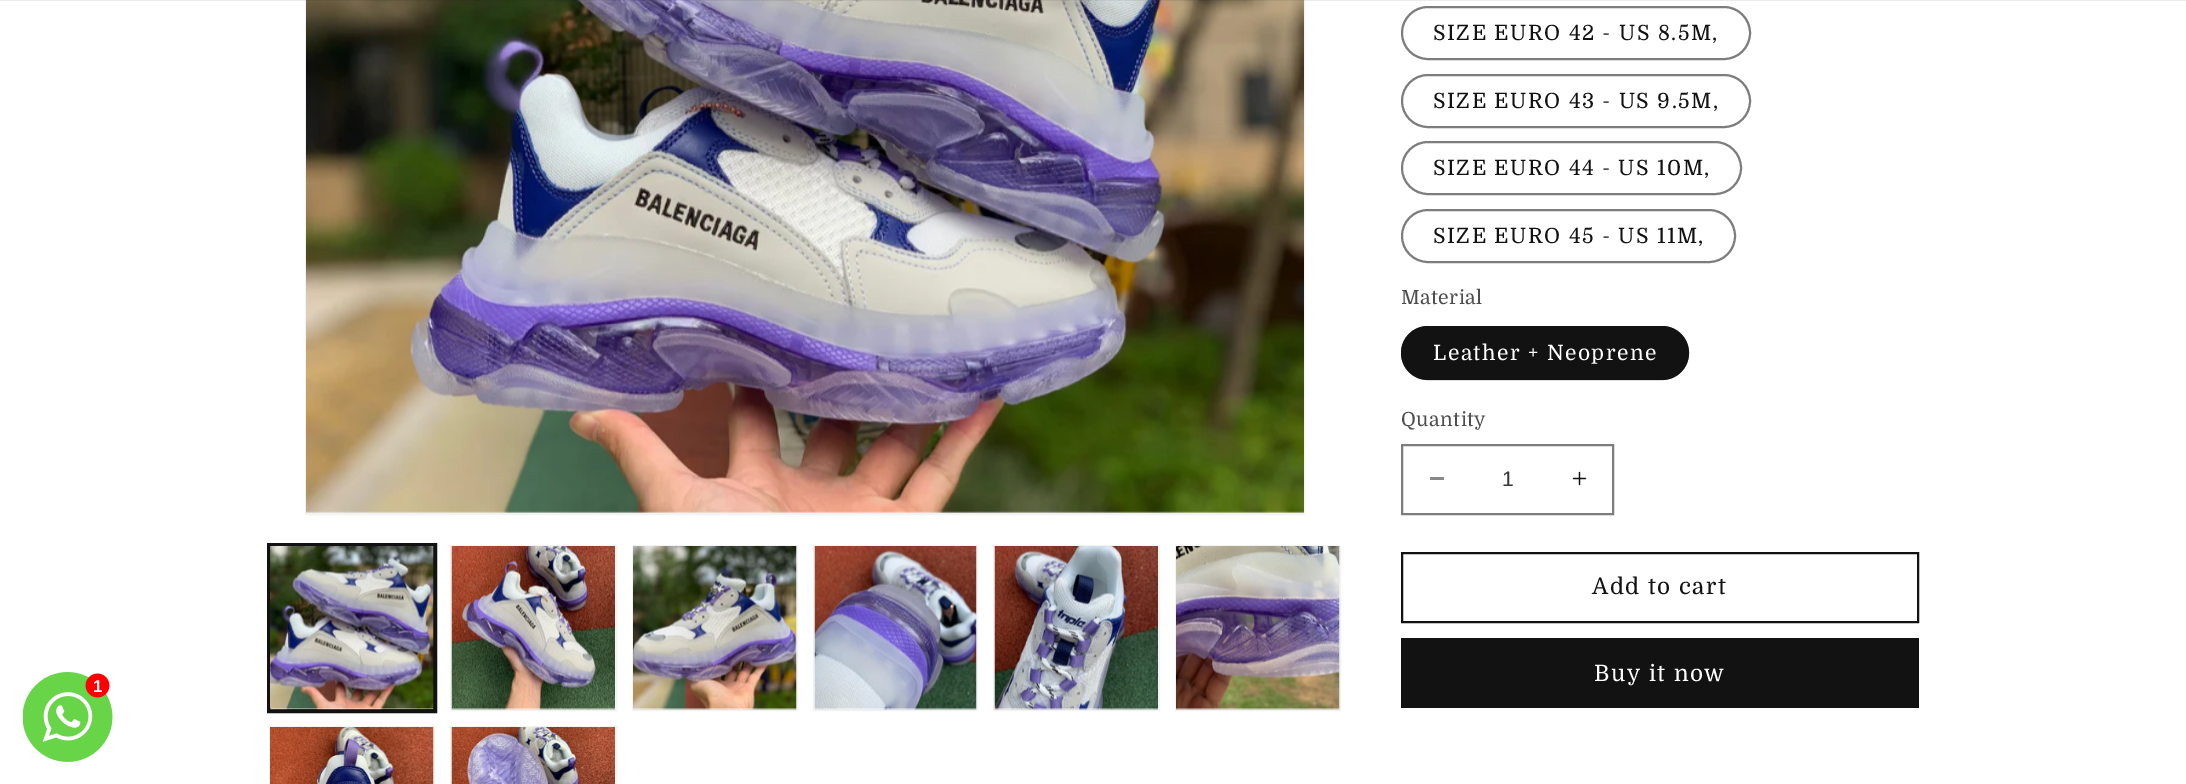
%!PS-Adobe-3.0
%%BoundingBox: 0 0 2186 784
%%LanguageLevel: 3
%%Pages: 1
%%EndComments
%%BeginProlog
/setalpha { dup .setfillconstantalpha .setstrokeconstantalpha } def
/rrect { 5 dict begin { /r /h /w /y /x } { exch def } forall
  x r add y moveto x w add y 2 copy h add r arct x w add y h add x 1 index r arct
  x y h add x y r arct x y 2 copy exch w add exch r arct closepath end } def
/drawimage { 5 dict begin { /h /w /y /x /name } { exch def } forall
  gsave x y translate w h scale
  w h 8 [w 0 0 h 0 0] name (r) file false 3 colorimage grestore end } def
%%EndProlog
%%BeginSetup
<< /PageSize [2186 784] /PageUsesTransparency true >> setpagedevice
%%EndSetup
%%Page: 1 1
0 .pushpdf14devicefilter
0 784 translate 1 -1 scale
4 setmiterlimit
1 setgray
0 0 2186 784 rectfill
0.953 setgray
2 setlinewidth
306 -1 998 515 rectstroke
(images/2.raw) 306 0 998 513 drawimage
0.08 setalpha
0.071 setgray
0 0 2186 1 rectfill
1 setalpha
(images/1.raw) 23 672 90 90 drawimage
268 544 168 168 rectstroke
270 546 164 164 rectstroke
(images/3.raw) 270 546 164 164 drawimage
0.953 setgray
451 546 165 164 rectstroke
(images/4.raw) 451 546 164 164 drawimage
633 546 164 164 rectstroke
(images/5.raw) 633 546 164 164 drawimage
814 546 163 164 rectstroke
(images/6.raw) 814 546 163 164 drawimage
994 546 165 164 rectstroke
(images/7.raw) 994 546 164 164 drawimage
1176 546 164 164 rectstroke
(images/8.raw) 1176 546 164 164 drawimage
270 727 164 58 rectstroke
(images/9.raw) 270 727 164 57 drawimage
451 727 165 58 rectstroke
(images/10.raw) 451 727 164 57 drawimage
0.49 setgray
1402 7 348 52 26 rrect stroke
1402 75 348 52 26 rrect stroke
1402 142 339 52 26 rrect stroke
1402 210 333 52 26 rrect stroke
0.071 setgray
1401 326 288 54 27 rrect fill
0.55 setalpha
1402 327 286 52 26 rrect stroke
1 setalpha
0.537 setgray
1430 477 14 3 rectfill
(images/11.raw) 1572 471 15 15 drawimage
0.49 setgray
1402 445 211 69 rectstroke
0.071 setgray
1402 553 516 69 rectstroke
1401 638 518 70 rectfill
/LiberationSans-Bold [17 0 0 -17 0 0] selectfont
1 setgray
93 692 moveto (1) show
/Domine-Regular [21 0 0 -21 0 0] selectfont
0.071 setgray
1433 40 moveto 1.5 0 (SIZE EURO 42 - US 8.5M,) ashow
1433 108 moveto 1.5 0 (SIZE EURO 43 - US 9.5M,) ashow
1433 175 moveto 1.5 0 (SIZE EURO 44 - US 10M,) ashow
1433 243 moveto 1.5 0 (SIZE EURO 45 - US 11M,) ashow
/Domine-Regular [19.5 0 0 -19.5 0 0] selectfont
0.302 setgray
1401 304 moveto 0.5 0 (Material) ashow
/Domine-Regular [21 0 0 -21 0 0] selectfont
1 setgray
1433 360 moveto 1.5 0 (Leather + Neoprene) ashow
/Domine-Regular [19.5 0 0 -19.5 0 0] selectfont
0.302 setgray
1401 426 moveto 0.5 0 (Quantity) ashow
/LiberationSans-Regular [21 0 0 -21 0 0] selectfont
0.212 setgray
1502 486 moveto (1) show
/Domine-Regular [22.5 0 0 -22.5 0 0] selectfont
0.071 setgray
1592 594 moveto 1.5 0 (Add to cart) ashow
1 setgray
1594 681 moveto 1.5 0 (Buy it now) ashow
.poppdf14devicefilter showpage
%%EOF
